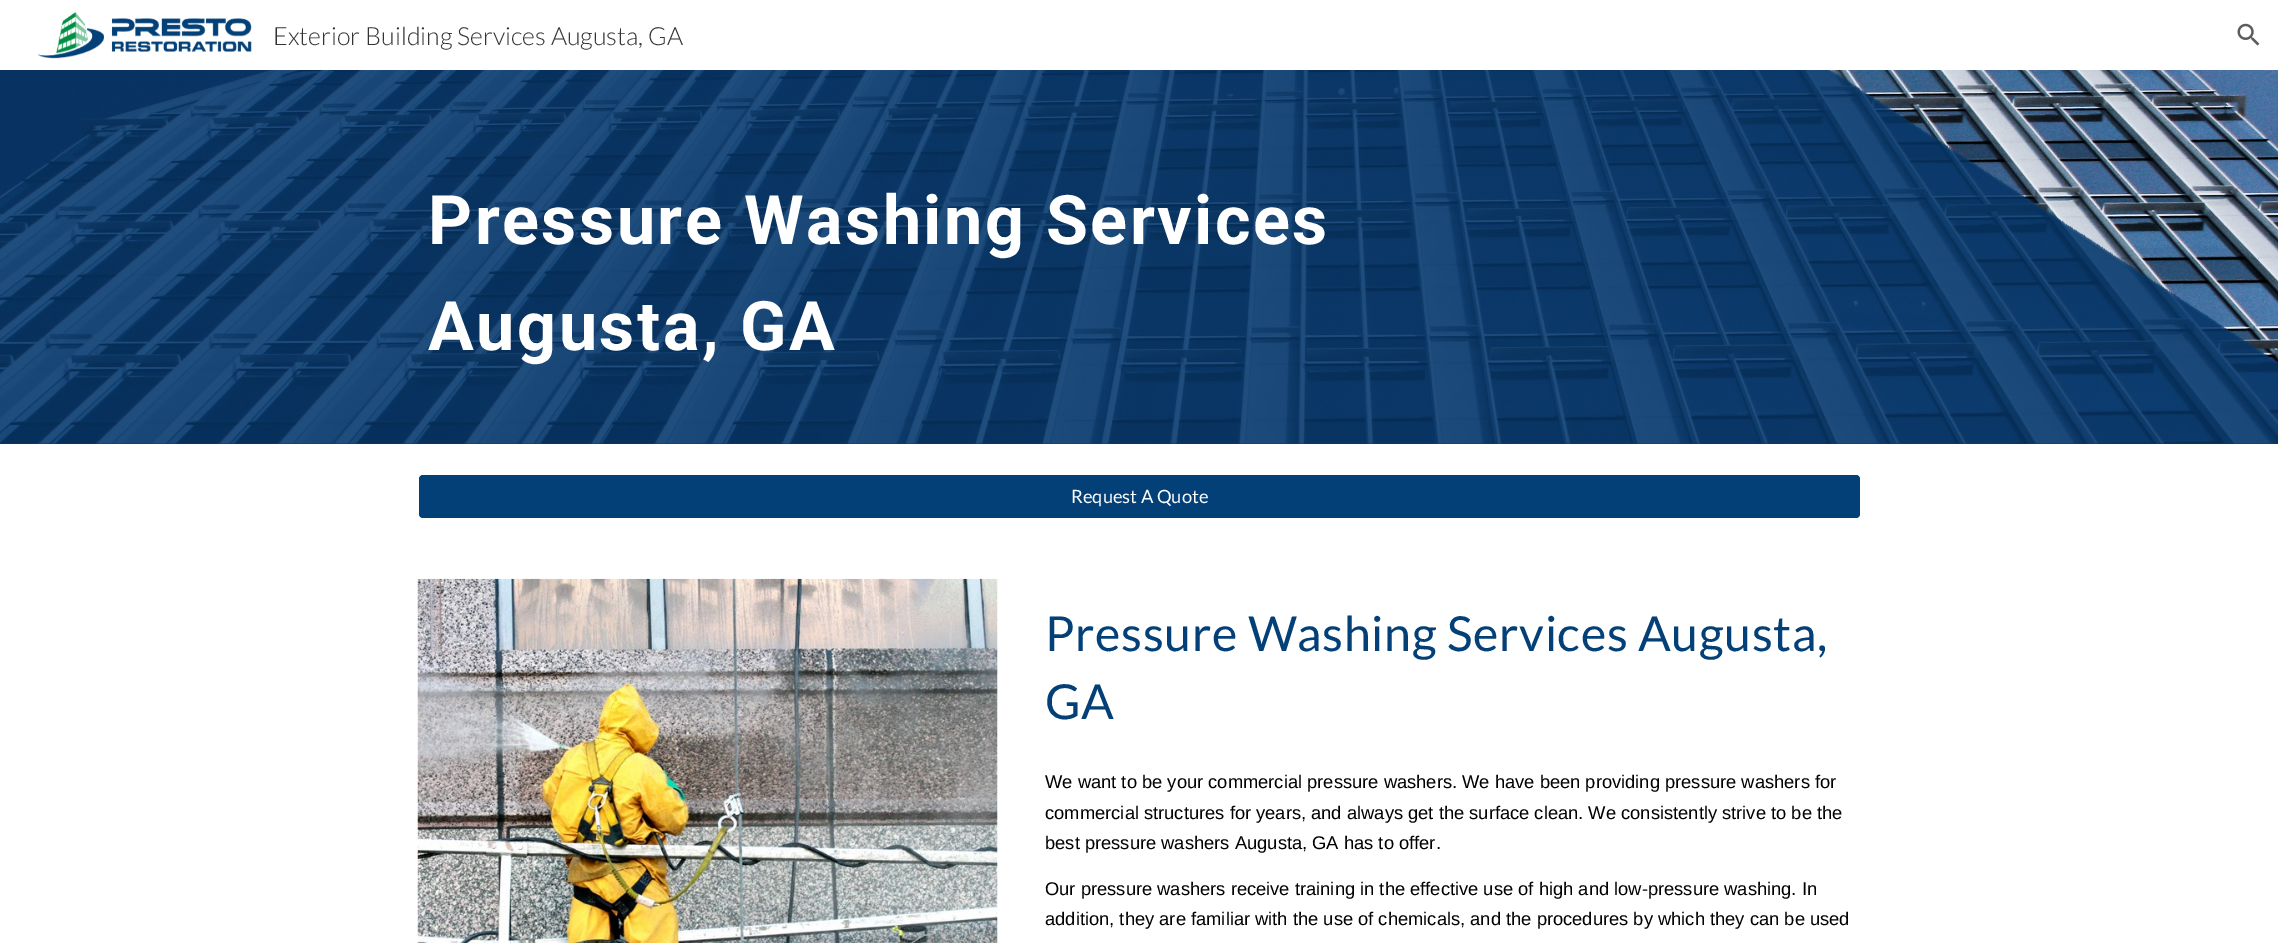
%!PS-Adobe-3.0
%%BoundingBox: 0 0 2278 943
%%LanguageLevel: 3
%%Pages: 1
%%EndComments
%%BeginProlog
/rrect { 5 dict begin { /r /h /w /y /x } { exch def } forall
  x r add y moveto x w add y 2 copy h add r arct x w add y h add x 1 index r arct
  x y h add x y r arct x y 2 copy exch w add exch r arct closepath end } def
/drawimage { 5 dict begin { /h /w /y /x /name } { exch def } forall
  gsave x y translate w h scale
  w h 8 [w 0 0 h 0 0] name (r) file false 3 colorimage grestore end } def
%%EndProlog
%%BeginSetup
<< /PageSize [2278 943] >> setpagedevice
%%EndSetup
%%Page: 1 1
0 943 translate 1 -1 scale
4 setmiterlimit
1 setgray
0 0 2278 943 rectfill
(images/1.raw) 38 12 214 47 drawimage
(images/2.raw) 2237 23 23 23 drawimage
0.012 0.251 0.471 setrgbcolor
0 443 2278 1 rectfill
(images/3.raw) 0 70 2278 374 drawimage
419 475 1441 43 4 rrect fill
(images/4.raw) 417 578 581 365 drawimage
/Lato-Light [25 0 0 -25 0 0] selectfont
0.2 setgray
273 45 moveto (Exterior Building Services Augusta, GA) show
/Roboto-Bold [68.3 0 0 -68.3 0 0] selectfont
1 setgray
428 244 moveto 2.5 0 (Pressure Washing Services) ashow
428 350 moveto 2.5 0 (Augusta, GA) ashow
/Lato-Regular [18.35 0 0 -18.35 0 0] selectfont
1071 503 moveto (Request A Quote) show
/Lato-Regular [48.3 0 0 -48.3 0 0] selectfont
0.012 0.251 0.471 setrgbcolor
1045 651 moveto 0.6 0 (Pressure Washing Services Augusta,) ashow
1045 719 moveto 0.6 0 (GA) ashow
/LiberationSans-Regular [18.35 0 0 -18.35 0 0] selectfont
0 setgray
1045 788 moveto (We want to be your commercial pressure washers. We have been providing pressure washers for) show
1045 819 moveto (commercial structures for years, and always get the surface clean. We consistently strive to be the) show
1045 849 moveto (best pressure washers Augusta, GA has to offer.) show
1045 895 moveto (Our pressure washers receive training in the effective use of high and low-pressure washing. In) show
1045 925 moveto (addition, they are familiar with the use of chemicals, and the procedures by which they can be used) show
showpage
%%EOF
